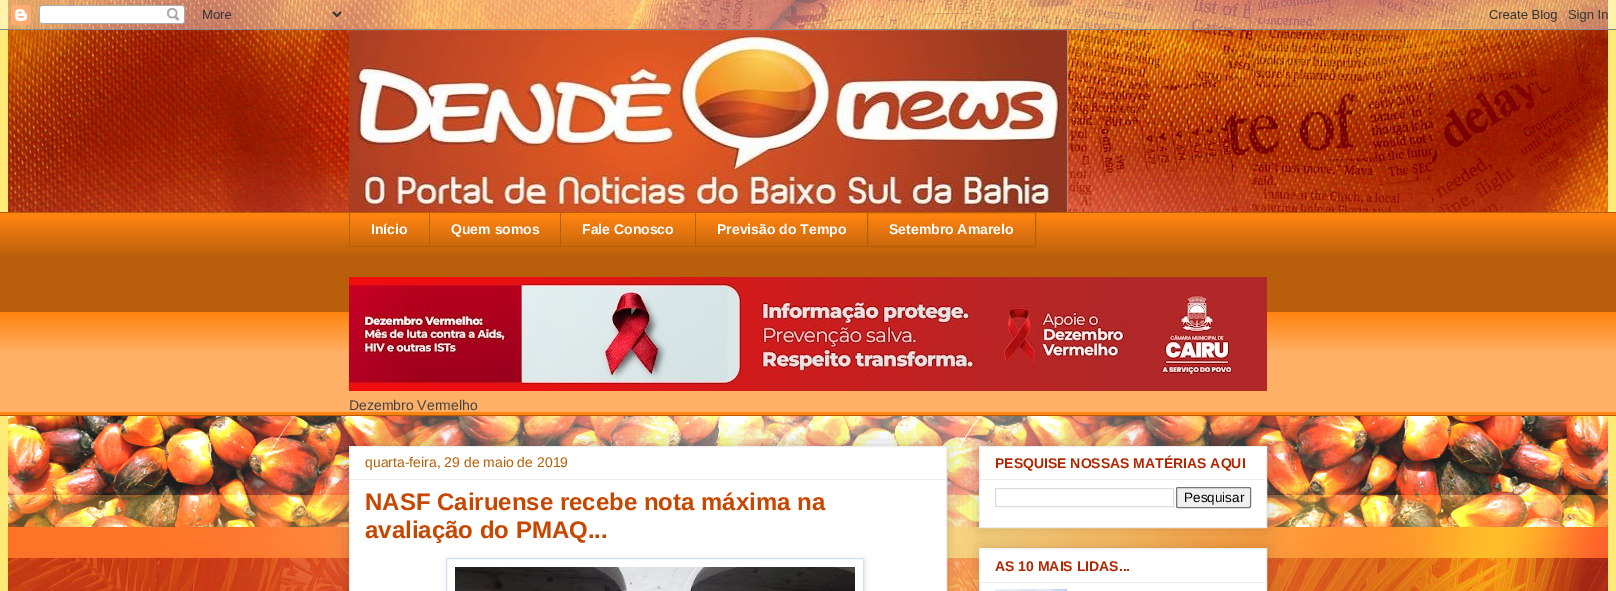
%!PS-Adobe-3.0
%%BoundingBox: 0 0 1616 591
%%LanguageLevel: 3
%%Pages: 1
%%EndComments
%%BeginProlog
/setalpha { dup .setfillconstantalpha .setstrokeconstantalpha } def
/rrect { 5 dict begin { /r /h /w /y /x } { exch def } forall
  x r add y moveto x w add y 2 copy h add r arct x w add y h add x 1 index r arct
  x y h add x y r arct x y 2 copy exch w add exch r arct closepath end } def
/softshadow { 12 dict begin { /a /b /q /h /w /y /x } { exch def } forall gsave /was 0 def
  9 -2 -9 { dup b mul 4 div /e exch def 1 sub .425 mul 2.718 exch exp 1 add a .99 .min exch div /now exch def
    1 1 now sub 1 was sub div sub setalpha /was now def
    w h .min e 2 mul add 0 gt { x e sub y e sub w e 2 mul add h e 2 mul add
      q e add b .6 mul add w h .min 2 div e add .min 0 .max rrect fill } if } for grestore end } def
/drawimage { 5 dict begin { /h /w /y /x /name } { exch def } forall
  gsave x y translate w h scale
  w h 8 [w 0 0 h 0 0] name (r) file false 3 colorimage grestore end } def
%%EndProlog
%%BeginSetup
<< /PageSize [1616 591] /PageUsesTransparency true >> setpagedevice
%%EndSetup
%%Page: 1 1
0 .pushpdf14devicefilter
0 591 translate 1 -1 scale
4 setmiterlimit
0.996 0.918 0.467 setrgbcolor
0 0 1616 591 rectfill
(images/1.raw) 8 0 1600 591 drawimage
(images/2.raw) 0 0 1616 30 drawimage
(images/3.raw) 349 30 719 182 drawimage
1 0.514 0.063 setrgbcolor
0 213 1616 202 rectfill
(images/4.raw) 0 218 1616 194 drawimage
0.706 0.373 0.024 setrgbcolor
0 212 1616 1 rectfill
349 246 518 1 rectfill
349 212 1 35 rectfill
429 212 1 35 rectfill
560 212 1 35 rectfill
695 212 1 35 rectfill
867.5 212.5 168 34 rectstroke
(images/5.raw) 349 277 918 114 drawimage
0 415 1616 1 rectfill
0 setgray
349 446 598 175 0 10 0.2 softshadow
1 setgray
newpath 349.5 446.5 moveto 946.5 446.5 lineto 946.5 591.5 lineto 349.5 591.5 lineto closepath gsave fill grestore
0.933 setgray
stroke
350 479 596 1 rectfill
gsave
newpath 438 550 moveto 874 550 lineto 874 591 lineto 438 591 lineto closepath 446 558 moveto 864 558 lineto 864 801 lineto 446 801 lineto closepath eoclip newpath
0 setgray
447 559 418 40 0 2.5 0.1 softshadow
grestore
0.812 0.886 0.953 setrgbcolor
446.5 558.5 417 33 rectstroke
(images/6.raw) 455 567 400 24 drawimage
0 setgray
979 446 288 82 0 10 0.2 softshadow
1 setgray
newpath 979.5 446.5 moveto 1266.5 446.5 lineto 1266.5 527.5 lineto 979.5 527.5 lineto closepath gsave fill grestore
0.933 setgray
stroke
980 479 286 1 rectfill
0.867 setgray
995.5 488.5 178 18 rectstroke
0.937 setgray
1176.5 487.5 74 20 1.5 rrect gsave fill grestore
0.463 setgray
stroke
0 setgray
979 548 288 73 0 10 0.2 softshadow
1 setgray
newpath 979.5 548.5 moveto 1266.5 548.5 lineto 1266.5 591.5 lineto 979.5 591.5 lineto closepath gsave fill grestore
0.933 setgray
stroke
980 582 286 1 rectfill
(images/7.raw) 995 589 72 2 drawimage
/LiberationSans-Bold [14 0 0 -14 0 0] selectfont
1 setgray
371 234 moveto (Início) show
451 234 moveto (Quem somos) show
582 234 moveto (Fale Conosco) show
717 234 moveto (Previsão do Tempo) show
889 234 moveto (Setembro Amarelo) show
/LiberationSans-Regular [14 0 0 -14 0 0] selectfont
0.267 setgray
349 410 moveto (Dezembro Vermelho) show
0.706 0.373 0.024 setrgbcolor
365 467 moveto (quarta-feira, 29 de maio de 2019) show
/LiberationSans-Bold [24 0 0 -24 0 0] selectfont
0.78 0.275 0 setrgbcolor
365 510 moveto (NASF Cairuense recebe nota máxima na) show
365 538 moveto (avaliação do PMAQ...) show
/LiberationSans-Bold [14 0 0 -14 0 0] selectfont
0.698 0.153 0.004 setrgbcolor
995 468 moveto (PESQUISE NOSSAS MATÉRIAS AQUI) show
/LiberationSans-Regular [13.5 0 0 -13.5 0 0] selectfont
0 setgray
1184 502 moveto (Pesquisar) show
/LiberationSans-Bold [14 0 0 -14 0 0] selectfont
0.698 0.153 0.004 setrgbcolor
995 571 moveto (AS 10 MAIS LIDAS...) show
.poppdf14devicefilter showpage
%%EOF
